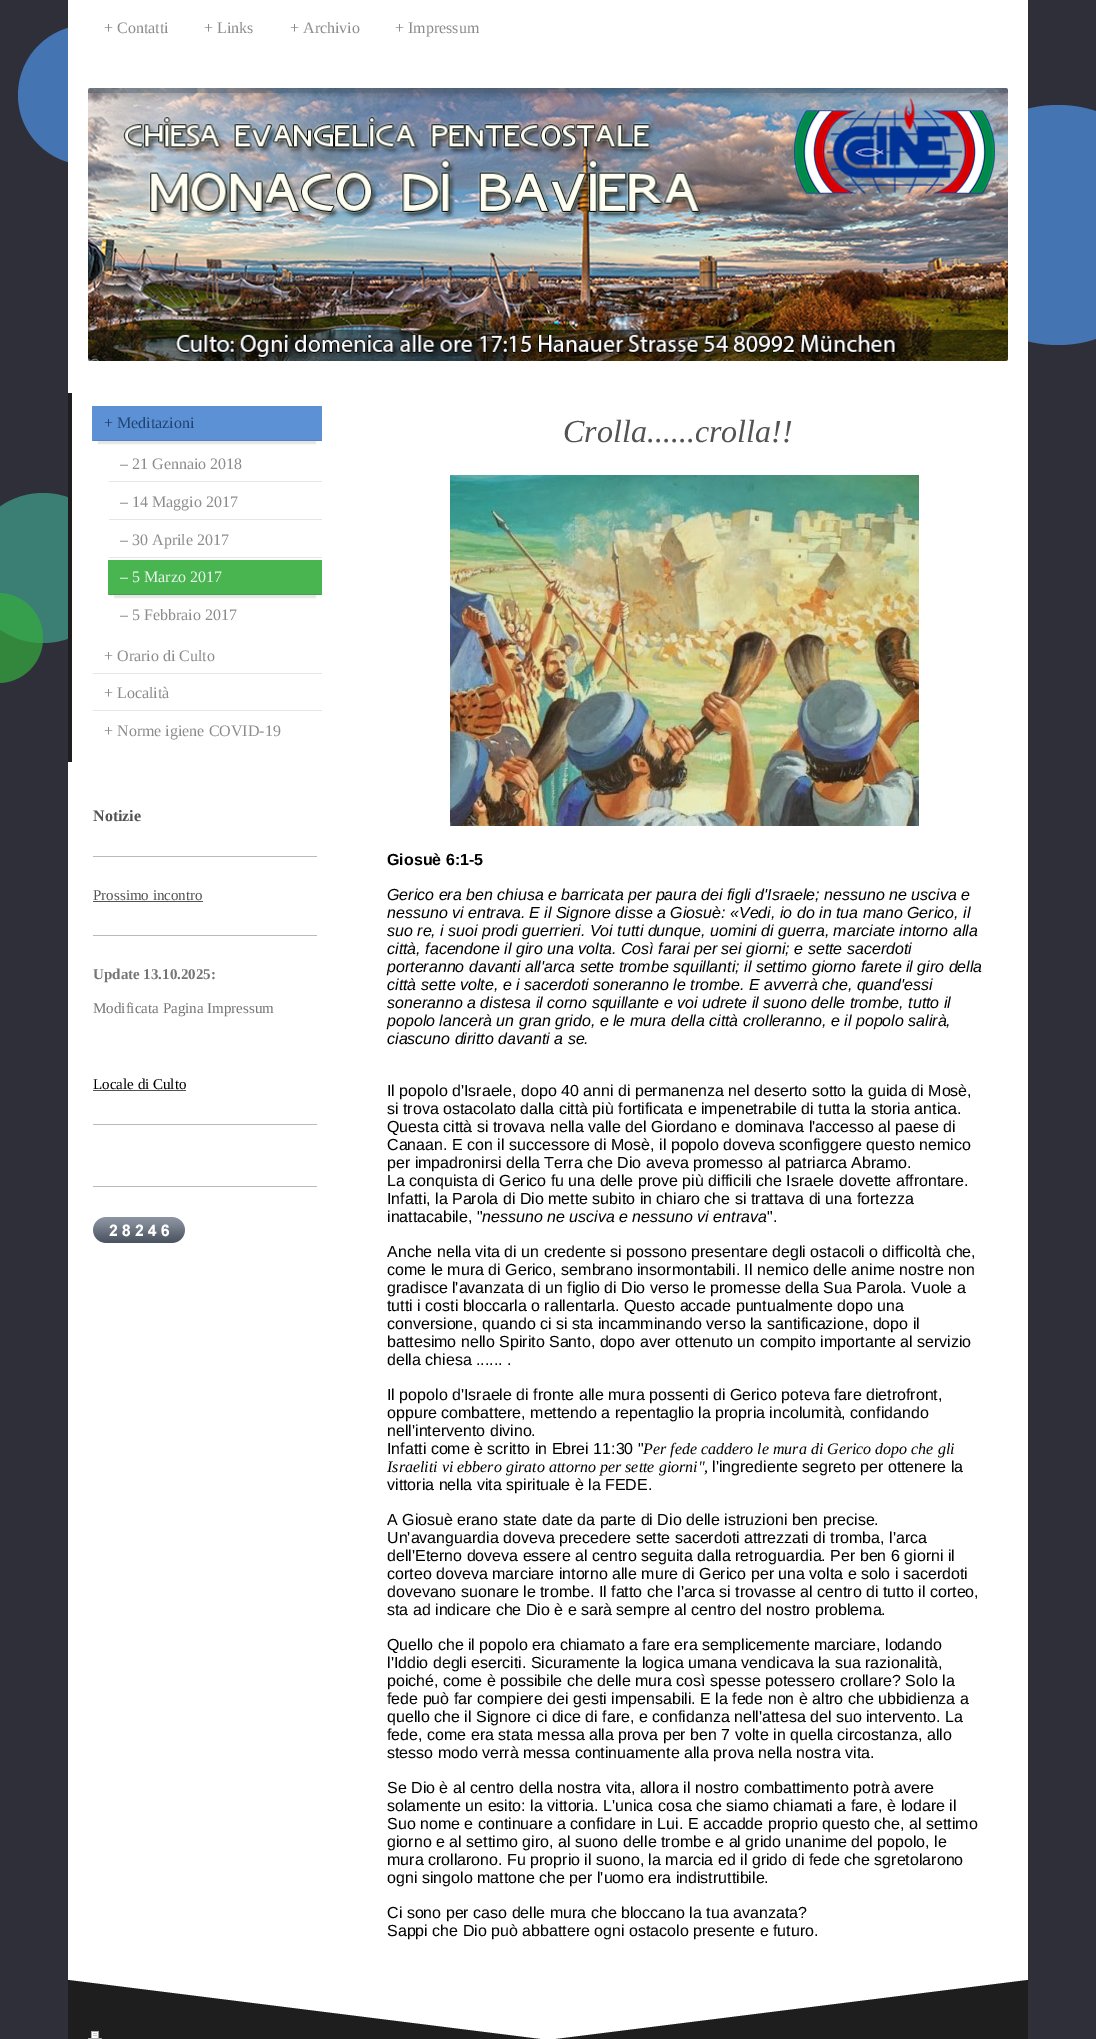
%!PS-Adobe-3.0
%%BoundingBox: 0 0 1096 2039
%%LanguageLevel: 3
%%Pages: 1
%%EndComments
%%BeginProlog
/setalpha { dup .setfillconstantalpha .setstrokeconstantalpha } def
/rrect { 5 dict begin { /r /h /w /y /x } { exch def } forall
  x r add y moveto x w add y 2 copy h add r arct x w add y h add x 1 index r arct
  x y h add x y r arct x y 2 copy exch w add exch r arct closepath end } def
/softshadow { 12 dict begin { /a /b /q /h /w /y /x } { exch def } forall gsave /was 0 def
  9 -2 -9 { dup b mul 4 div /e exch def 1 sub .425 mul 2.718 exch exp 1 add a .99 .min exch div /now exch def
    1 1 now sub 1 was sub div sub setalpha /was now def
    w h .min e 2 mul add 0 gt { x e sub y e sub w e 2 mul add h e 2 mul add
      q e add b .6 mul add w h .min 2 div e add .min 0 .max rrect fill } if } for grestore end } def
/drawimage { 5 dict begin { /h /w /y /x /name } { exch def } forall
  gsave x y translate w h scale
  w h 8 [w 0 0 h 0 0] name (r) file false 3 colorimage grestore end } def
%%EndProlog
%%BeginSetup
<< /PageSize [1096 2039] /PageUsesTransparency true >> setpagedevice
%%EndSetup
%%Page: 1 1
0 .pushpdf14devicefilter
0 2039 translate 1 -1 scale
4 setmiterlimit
0.18 0.184 0.22 setrgbcolor
0 0 1096 2039 rectfill
0.8 setalpha
0.294 0.522 0.82 setrgbcolor
newpath 88 95 70 0 360 arc closepath fill
newpath 1058 225 120 0 360 arc closepath fill
0.75 setalpha
0.251 0.6 0.533 setrgbcolor
newpath 43 568 75 0 360 arc closepath fill
1 setalpha
1 setgray
68 0 960 2039 rectfill
(images/1.raw) 88 88 920 273 drawimage
0.118 setgray
68 393 4 369 rectfill
0 setgray
98 421 218 23 0 0.5 0.1 softshadow
0.365 0.569 0.839 setrgbcolor
92 406 230 35 1 rrect fill
0.1 setalpha
0 setgray
93 440 229 1 rectfill
1 setalpha
0.902 setgray
109 481 213 1 rectfill
109 519 213 1 rectfill
109 557 213 1 rectfill
0 setgray
114 575 202 23 0 0.5 0.1 softshadow
0.282 0.71 0.318 setrgbcolor
108 560 214 35 1 rrect fill
0.1 setalpha
0 setgray
109 594 213 1 rectfill
1 setalpha
0.902 setgray
93 673 229 1 rectfill
93 710 229 1 rectfill
0.729 setgray
93 856 224 1 rectfill
0.325 setgray
93 901 110 1 rectfill
0.729 setgray
93 935 224 1 rectfill
0.325 setgray
93 1090 93 1 rectfill
0.729 setgray
93 1124 224 1 rectfill
93 1186 224 1 rectfill
(images/2.raw) 93 1217 14 26 drawimage
(images/3.raw) 107 1217 13 26 drawimage
(images/4.raw) 120 1217 13 26 drawimage
(images/3.raw) 133 1217 13 26 drawimage
(images/5.raw) 146 1217 13 26 drawimage
(images/6.raw) 159 1217 13 26 drawimage
(images/7.raw) 172 1217 13 26 drawimage
(images/8.raw) 450 475 469 351 drawimage
0.7 setalpha
0.204 0.678 0.243 setrgbcolor
-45 593 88 90 45 rrect fill
1 setalpha
0.118 setgray
newpath 548 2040 moveto 68 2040 lineto 68 1980 lineto closepath fill
newpath 1028 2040 moveto 548 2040 lineto 1028 1980 lineto closepath fill
(images/9.raw) 88 2031 14 8 drawimage
/LiberationSerif-Regular [16 0 0 -16 0 0] selectfont
0.549 setgray
104 33 moveto (+ Contatti) show
204 33 moveto (+ Links) show
290 33 moveto (+ Archivio) show
395 33 moveto (+ Impressum) show
0.122 0.267 0.451 setrgbcolor
104 428 moveto (+ Meditazioni) show
0.549 setgray
120 469 moveto (– 21 Gennaio 2018) show
120 507 moveto (– 14 Maggio 2017) show
120 545 moveto (– 30 Aprile 2017) show
0.922 0.969 0.925 setrgbcolor
120 582 moveto (– 5 Marzo 2017) show
0.549 setgray
120 620 moveto (– 5 Febbraio 2017) show
104 661 moveto (+ Orario di Culto) show
104 698 moveto (+ Località) show
104 736 moveto (+ Norme igiene COVID-19) show
/LiberationSerif-Bold [16 0 0 -16 0 0] selectfont
0.325 setgray
93 821 moveto (Notizie) show
/LiberationSerif-Regular [15 0 0 -15 0 0] selectfont
93 900 moveto (Prossimo incontro) show
/LiberationSerif-Bold [15 0 0 -15 0 0] selectfont
0.459 setgray
93 979 moveto (Update 13.10.2025:) show
/LiberationSerif-Regular [15 0 0 -15 0 0] selectfont
93 1013 moveto (Modificata Pagina Impressum) show
0 setgray
93 1089 moveto (Locale di Culto) show
/LiberationSerif-Italic [32 0 0 -32 0 0] selectfont
0.325 setgray
563 442 moveto (Crolla......crolla!!) show
/LiberationSans-Bold [16 0 0 -16 0 0] selectfont
0 setgray
387 865 moveto (Giosuè 6:1-5) show
/LiberationSans-Italic [16 0 0 -16 0 0] selectfont
387 900 moveto (Gerico era ben chiusa e barricata per paura dei figli d'Israele; nessuno ne usciva e) show
387 918 moveto (nessuno vi entrava.) show
529 918 moveto (E il Signore disse a Giosuè: «Vedi, io do in tua mano Gerico, il) show
387 936 moveto (suo re, i suoi prodi guerrieri. Voi tutti dunque, uomini di guerra, marciate intorno alla) show
387 954 moveto (città, facendone il giro una volta. Così farai per sei giorni; e sette sacerdoti) show
387 972 moveto (porteranno davanti all'arca sette trombe squillanti; il settimo giorno farete il giro della) show
387 990 moveto (città sette volte, e i sacerdoti soneranno le trombe. E avverrà che, quand'essi) show
387 1008 moveto (soneranno a distesa il corno squillante e voi udrete il suono delle trombe, tutto il) show
387 1026 moveto (popolo lancerà un gran grido, e le mura della città crolleranno, e il popolo salirà,) show
387 1044 moveto (ciascuno diritto davanti a se.) show
/LiberationSans-Regular [16 0 0 -16 0 0] selectfont
387 1096 moveto (Il popolo d'Israele, dopo 40 anni di permanenza nel deserto sotto la guida di Mosè,) show
387 1114 moveto (si trova ostacolato dalla città più fortificata e impenetrabile di tutta la storia antica.) show
387 1132 moveto (Questa città si trovava nella valle del Giordano e dominava l'accesso al paese di) show
387 1150 moveto (Canaan. E con il successore di Mosè, il popolo doveva sconfiggere questo nemico) show
387 1168 moveto (per impadronirsi della Terra che Dio aveva promesso al patriarca Abramo.) show
387 1186 moveto (La conquista di Gerico fu una delle prove più difficili che Israele dovette affrontare.) show
387 1204 moveto (Infatti, la Parola di Dio mette subito in chiaro che si trattava di una fortezza) show
387 1222 moveto (inattacabile, ") show
/LiberationSans-Italic [16 0 0 -16 0 0] selectfont
482 1222 moveto (nessuno ne usciva e nessuno vi entrava) show
/LiberationSans-Regular [16 0 0 -16 0 0] selectfont
767 1222 moveto (".) show
387 1257 moveto (Anche nella vita di un credente si possono presentare degli ostacoli o difficoltà che,) show
387 1275 moveto (come le mura di Gerico, sembrano insormontabili. Il nemico delle anime nostre non) show
387 1293 moveto (gradisce l'avanzata di un figlio di Dio verso le promesse della Sua Parola. Vuole a) show
387 1311 moveto (tutti i costi bloccarla o rallentarla. Questo accade puntualmente dopo una) show
387 1329 moveto (conversione, quando ci si sta incamminando verso la santificazione, dopo il) show
387 1347 moveto (battesimo nello Spirito Santo, dopo aver ottenuto un compito importante al servizio) show
387 1365 moveto (della chiesa ...... .) show
387 1400 moveto (Il popolo d'Israele di fronte alle mura possenti di Gerico poteva fare dietrofront,) show
387 1418 moveto (oppure combattere, mettendo a repentaglio la propria incolumità, confidando) show
387 1436 moveto (nell'intervento divino.) show
387 1454 moveto (Infatti come è scritto in Ebrei 11:30 ") show
/LiberationSerif-Italic [16 0 0 -16 0 0] selectfont
643 1454 moveto (Per fede caddero le mura di Gerico dopo che gli) show
387 1472 moveto (Israeliti vi ebbero girato attorno per sette giorni",) show
/LiberationSans-Regular [16 0 0 -16 0 0] selectfont
712 1472 moveto (l'ingrediente segreto per ottenere la) show
387 1490 moveto (vittoria nella vita spirituale è la FEDE.) show
387 1525 moveto (A Giosuè erano state date da parte di Dio delle istruzioni ben precise.) show
387 1543 moveto (Un'avanguardia doveva precedere sette sacerdoti attrezzati di tromba, l'arca) show
387 1561 moveto (dell'Eterno doveva essere al centro seguita dalla retroguardia. Per ben 6 giorni il) show
387 1579 moveto (corteo doveva marciare intorno alle mure di Gerico per una volta e solo i sacerdoti) show
387 1597 moveto (dovevano suonare le trombe. Il fatto che l'arca si trovasse al centro di tutto il corteo,) show
387 1615 moveto (sta ad indicare che Dio è e sarà sempre al centro del nostro problema.) show
387 1650 moveto (Quello che il popolo era chiamato a fare era semplicemente marciare, lodando) show
387 1668 moveto (l'Iddio degli eserciti. Sicuramente la logica umana vendicava la sua razionalità,) show
387 1686 moveto (poiché, come è possibile che delle mura così spesse potessero crollare? Solo la) show
387 1704 moveto (fede può far compiere dei gesti impensabili. E la fede non è altro che ubbidienza a) show
387 1722 moveto (quello che il Signore ci dice di fare, e confidanza nell'attesa del suo intervento. La) show
387 1740 moveto (fede, come era stata messa alla prova per ben 7 volte in quella circostanza, allo) show
387 1758 moveto (stesso modo verrà messa continuamente alla prova nella nostra vita.) show
387 1793 moveto (Se Dio è al centro della nostra vita, allora il nostro combattimento potrà avere) show
387 1811 moveto (solamente un esito: la vittoria. L'unica cosa che siamo chiamati a fare, è lodare il) show
387 1829 moveto (Suo nome e continuare a confidare in Lui. E accadde proprio questo che, al settimo) show
387 1847 moveto (giorno e al settimo giro, al suono delle trombe e al grido unanime del popolo, le) show
387 1865 moveto (mura crollarono. Fu proprio il suono, la marcia ed il grido di fede che sgretolarono) show
387 1883 moveto (ogni singolo mattone che per l'uomo era indistruttibile.) show
387 1918 moveto (Ci sono per caso delle mura che bloccano la tua avanzata?) show
387 1936 moveto (Sappi che Dio può abbattere ogni ostacolo presente e futuro.) show
.poppdf14devicefilter showpage
%%EOF
